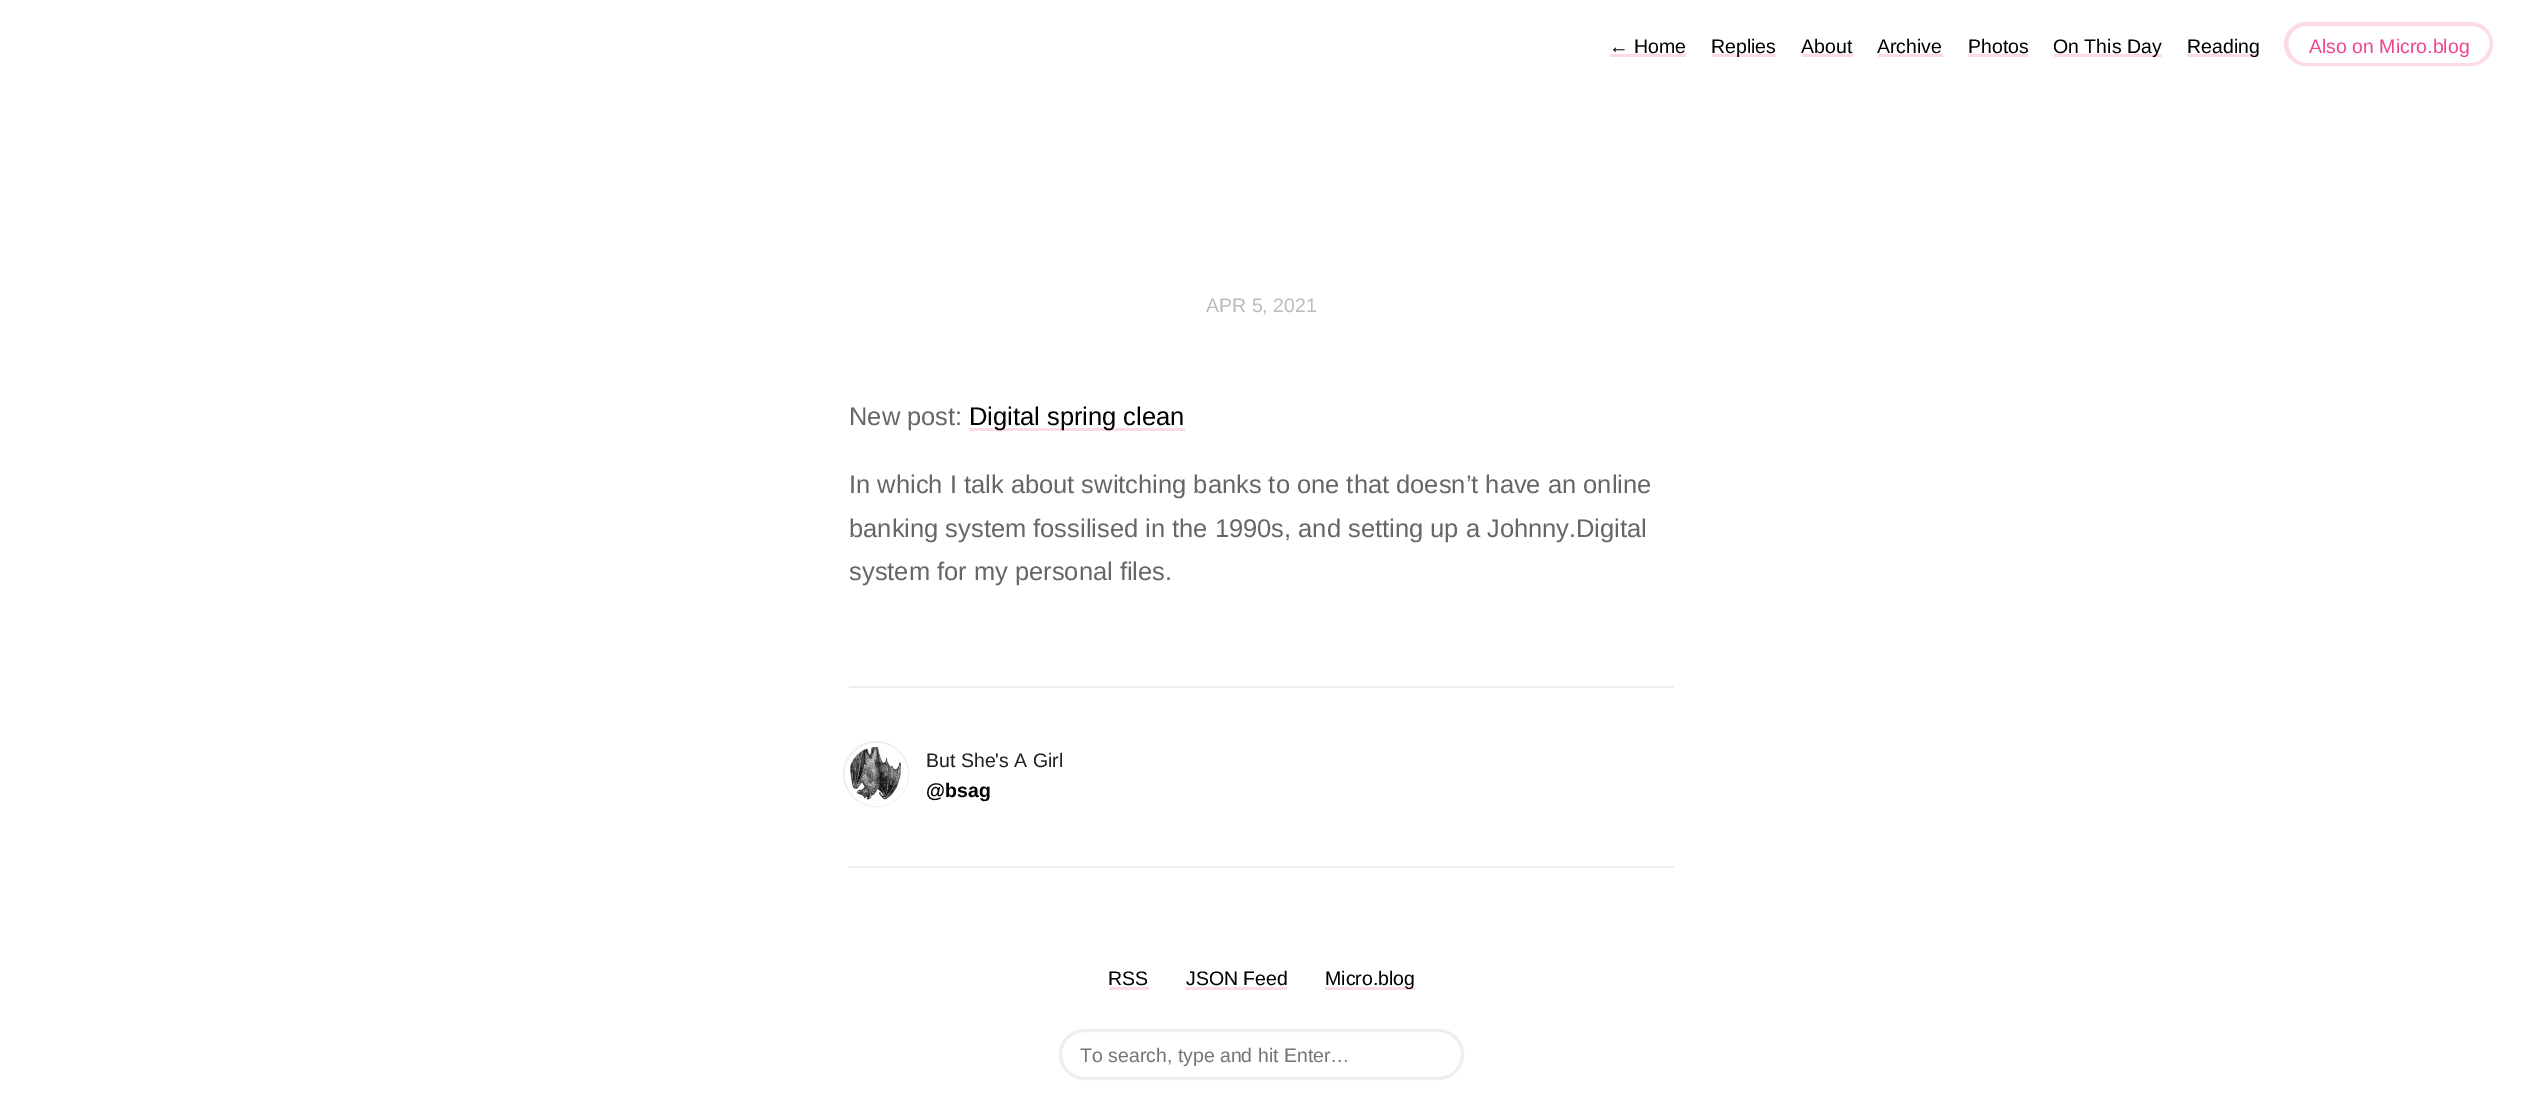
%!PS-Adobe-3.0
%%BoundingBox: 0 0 2523 1100
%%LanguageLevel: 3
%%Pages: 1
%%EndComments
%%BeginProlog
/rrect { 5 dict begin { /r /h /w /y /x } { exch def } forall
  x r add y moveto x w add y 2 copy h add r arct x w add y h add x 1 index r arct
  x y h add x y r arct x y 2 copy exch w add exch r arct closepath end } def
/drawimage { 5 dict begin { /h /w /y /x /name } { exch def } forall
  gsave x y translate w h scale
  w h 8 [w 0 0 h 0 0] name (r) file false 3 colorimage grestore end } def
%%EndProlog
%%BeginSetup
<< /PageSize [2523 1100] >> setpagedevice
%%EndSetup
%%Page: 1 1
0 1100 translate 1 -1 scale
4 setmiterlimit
1 setgray
0 0 2523 1100 rectfill
0.988 0.855 0.914 setrgbcolor
1610 54 76 3 rectfill
1712 54 64 3 rectfill
1802 54 51 3 rectfill
1878 54 65 3 rectfill
1968 54 60 3 rectfill
2054 54 108 3 rectfill
2187 54 72 3 rectfill
newpath 2288 40 moveto 2288 44 lineto 2288 56 2296 66 2306 66 curveto 2471 66 lineto 2482 66 2490 56 2490 44 curveto 2490 43 lineto 2489 54 2481 63 2471 63 curveto 2306 63 lineto 2296 63 2288 53 2288 41 curveto closepath fill
newpath 2306 22 moveto 2471 22 lineto 2483 22 2493 32 2493 44 curveto 2493 56 2483 66 2471 66 curveto 2306 66 lineto 2294 66 2284 56 2284 44 curveto 2284 32 2294 22 2306 22 curveto closepath 2306 26 moveto 2471 26 lineto 2482 26 2490 34 2490 44 curveto 2490 56 2482 66 2471 66 curveto 2306 66 lineto 2296 66 2288 56 2288 44 curveto 2288 34 2296 26 2306 26 curveto closepath eofill
969 428 216 3 rectfill
0.933 setgray
849 686 825 2 rectfill
849 866 825 2 rectfill
6 setlinewidth
newpath 876 774 30 0 360 arc closepath stroke
1 setgray
5 setlinewidth
newpath 876.5 774.5 29 0 360 arc closepath stroke
(images/1.raw) 850 747 51 53 drawimage
0.988 0.855 0.914 setrgbcolor
1109 987 40 3 rectfill
1185 987 102 3 rectfill
1325 987 90 3 rectfill
0.933 setgray
3 setlinewidth
1060.5 1030.5 402 48 24 rrect stroke
/LiberationSans-Regular [19.5 0 0 -19.5 0 0] selectfont
0 setgray
1609 53 moveto (← Home) show
1711 53 moveto (Replies) show
1801 53 moveto (About) show
1877 53 moveto (Archive) show
1968 53 moveto (Photos) show
2053 53 moveto (On This Day) show
2187 53 moveto (Reading) show
0.933 0.278 0.573 setrgbcolor
2309 53 moveto (Also on Micro.blog) show
0.733 setgray
1206 312 moveto (APR 5, 2021) show
/LiberationSans-Regular [25.5 0 0 -25.5 0 0] selectfont
0.4 setgray
849 425 moveto (New post:) show
0 setgray
969 425 moveto (Digital spring clean) show
0.4 setgray
849 493 moveto (In which I talk about switching banks to one that doesn’t have an online) show
849 537 moveto (banking system fossilised in the 1990s, and setting up a Johnny.Digital) show
849 580 moveto (system for my personal files.) show
/LiberationSans-Regular [19.5 0 0 -19.5 0 0] selectfont
0.118 0.125 0.145 setrgbcolor
926 767 moveto (But She's A Girl) show
/LiberationSans-Bold [19.5 0 0 -19.5 0 0] selectfont
0 setgray
926 797 moveto (@bsag) show
/LiberationSans-Regular [19.5 0 0 -19.5 0 0] selectfont
1108 985 moveto (RSS) show
1186 985 moveto (JSON Feed) show
1325 985 moveto (Micro.blog) show
0.459 setgray
1080 1062 moveto (To search, type and hit Enter…) show
showpage
%%EOF
